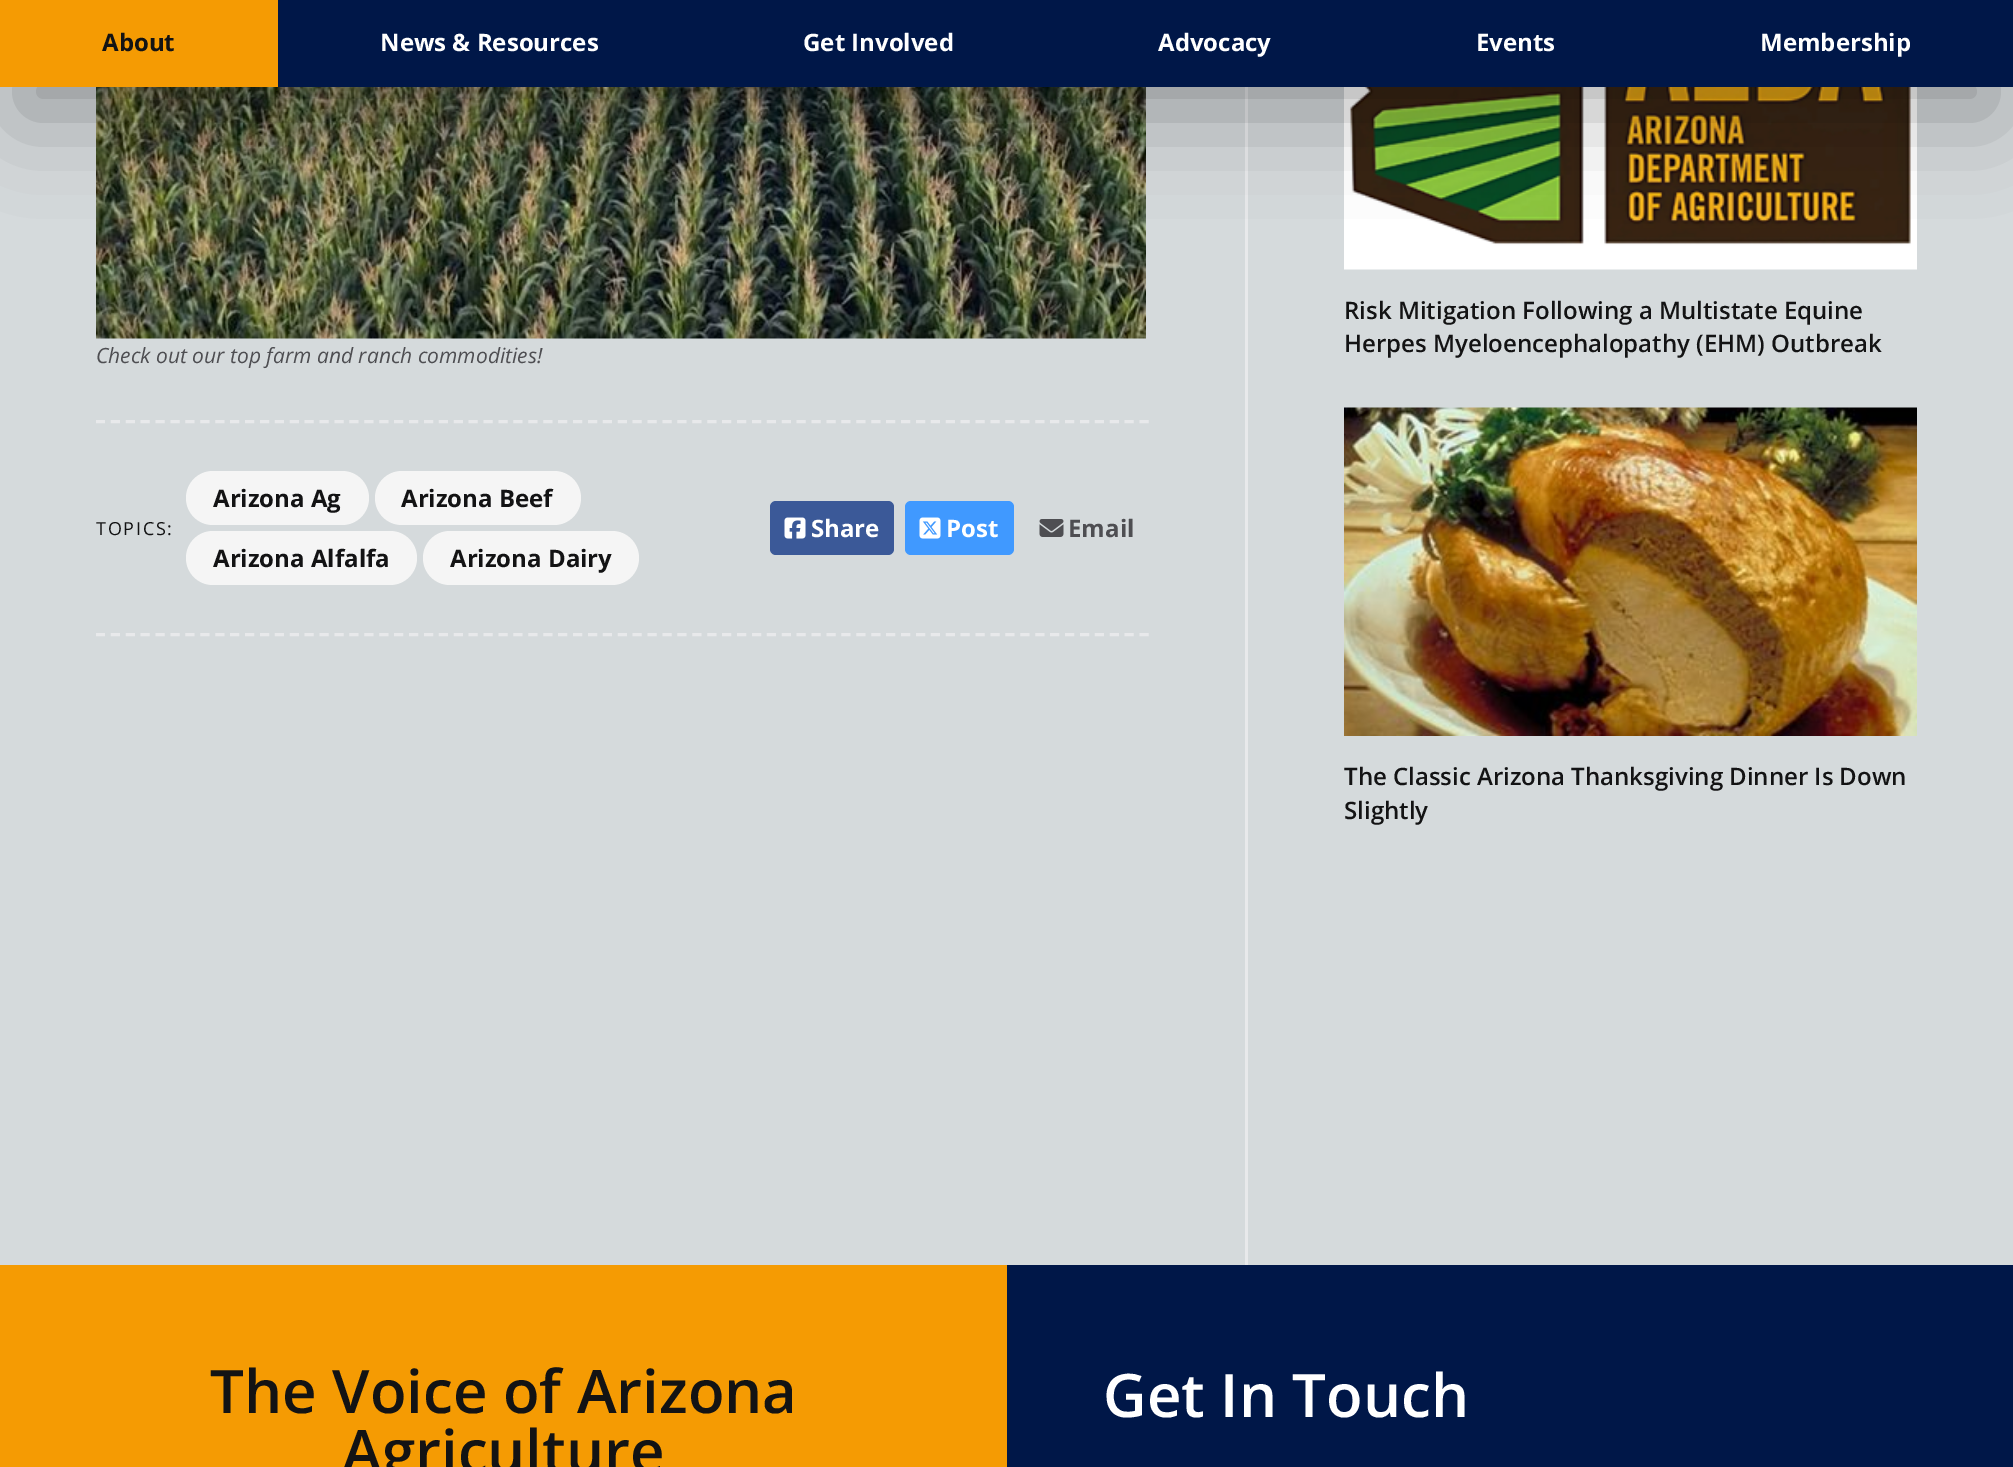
%!PS-Adobe-3.0
%%BoundingBox: 0 0 2013 1467
%%LanguageLevel: 3
%%Pages: 1
%%EndComments
%%BeginProlog
/setalpha { dup .setfillconstantalpha .setstrokeconstantalpha } def
/rrect { 5 dict begin { /r /h /w /y /x } { exch def } forall
  x r add y moveto x w add y 2 copy h add r arct x w add y h add x 1 index r arct
  x y h add x y r arct x y 2 copy exch w add exch r arct closepath end } def
/softshadow { 12 dict begin { /a /b /q /h /w /y /x } { exch def } forall gsave /was 0 def
  9 -2 -9 { dup b mul 4 div /e exch def 1 sub .425 mul 2.718 exch exp 1 add a .99 .min exch div /now exch def
    1 1 now sub 1 was sub div sub setalpha /was now def
    w h .min e 2 mul add 0 gt { x e sub y e sub w e 2 mul add h e 2 mul add
      q e add b .6 mul add w h .min 2 div e add .min 0 .max rrect fill } if } for grestore end } def
/drawimage { 5 dict begin { /h /w /y /x /name } { exch def } forall
  gsave x y translate w h scale
  w h 8 [w 0 0 h 0 0] name (r) file false 3 colorimage grestore end } def
%%EndProlog
%%BeginSetup
<< /PageSize [2013 1467] /PageUsesTransparency true >> setpagedevice
%%EndSetup
%%Page: 1 1
0 .pushpdf14devicefilter
0 1467 translate 1 -1 scale
4 setmiterlimit
0.835 0.855 0.863 setrgbcolor
0 0 2013 1467 rectfill
(images/1.raw) 96 87 1050 252 drawimage
0.91 0.914 0.922 setrgbcolor
1245 87 3 1178 rectfill
(images/5.raw) 1344 87 573 183 drawimage
0 setgray
24 72 1965 39 0 48 0.32 softshadow
0 0.09 0.282 setrgbcolor
278 0 1735 87 rectfill
0.961 0.608 0.012 setrgbcolor
0 0 278 87 rectfill
0.91 0.914 0.922 setrgbcolor
3 setlinewidth
[9 5.91] 0 setdash
newpath 96 421.5 moveto 1149 421.5 lineto stroke
newpath 96 634.5 moveto 1149 634.5 lineto stroke
0.961 setgray
186 471 183 54 27 rrect fill
375 471 206 54 27 rrect fill
186 531 231 54 27 rrect fill
423 531 216 54 27 rrect fill
0.231 0.349 0.596 setrgbcolor
770 501 124 54 6 rrect fill
(images/2.raw) 784 517 22 22 drawimage
0.251 0.6 1 setrgbcolor
905 501 109 54 6 rrect fill
(images/3.raw) 919 517 22 22 drawimage
(images/4.raw) 1039 519 25 18 drawimage
(images/6.raw) 1344 407 573 329 drawimage
0.961 0.608 0.012 setrgbcolor
0 1265 1007 202 rectfill
0 0.09 0.282 setrgbcolor
1007 1265 1006 202 rectfill
/OpenSans-Bold [24 0 0 -24 0 0] selectfont
0.075 0.075 0.078 setrgbcolor
102 51 moveto (About) show
1 setgray
380 51 moveto (News & Resources) show
803 51 moveto (Get Involved) show
1158 51 moveto (Advocacy) show
1476 51 moveto (Events) show
1760 51 moveto (Membership) show
/OpenSans-Italic [21 0 0 -21 0 0] selectfont
0.306 0.306 0.322 setrgbcolor
96 363 moveto (Check out our top farm and ranch commodities!) show
/OpenSans-Regular [18 0 0 -18 0 0] selectfont
0.075 0.075 0.078 setrgbcolor
96 535 moveto 1.75 0 (TOPICS:) ashow
/OpenSans-Bold [24 0 0 -24 0 0] selectfont
213 507 moveto (Arizona Ag) show
401 507 moveto (Arizona Beef) show
213 567 moveto (Arizona Alfalfa) show
450 567 moveto (Arizona Dairy) show
1 setgray
811 537 moveto (Share) show
946 537 moveto (Post) show
0.306 0.306 0.322 setrgbcolor
1068 537 moveto (Email) show
/OpenSans-SemiBold [24 0 0 -24 0 0] selectfont
0.075 0.075 0.078 setrgbcolor
1344 319 moveto (Risk Mitigation Following a Multistate Equine) show
1344 352 moveto (Herpes Myeloencephalopathy \(EHM\) Outbreak) show
1344 785 moveto (The Classic Arizona Thanksgiving Dinner Is Down) show
1344 819 moveto (Slightly) show
/OpenSans-SemiBold [60 0 0 -60 0 0] selectfont
210 1413 moveto (The Voice of Arizona) show
342 1473 moveto (Agriculture) show
1 setgray
1103 1417 moveto (Get In Touch) show
.poppdf14devicefilter showpage
%%EOF
